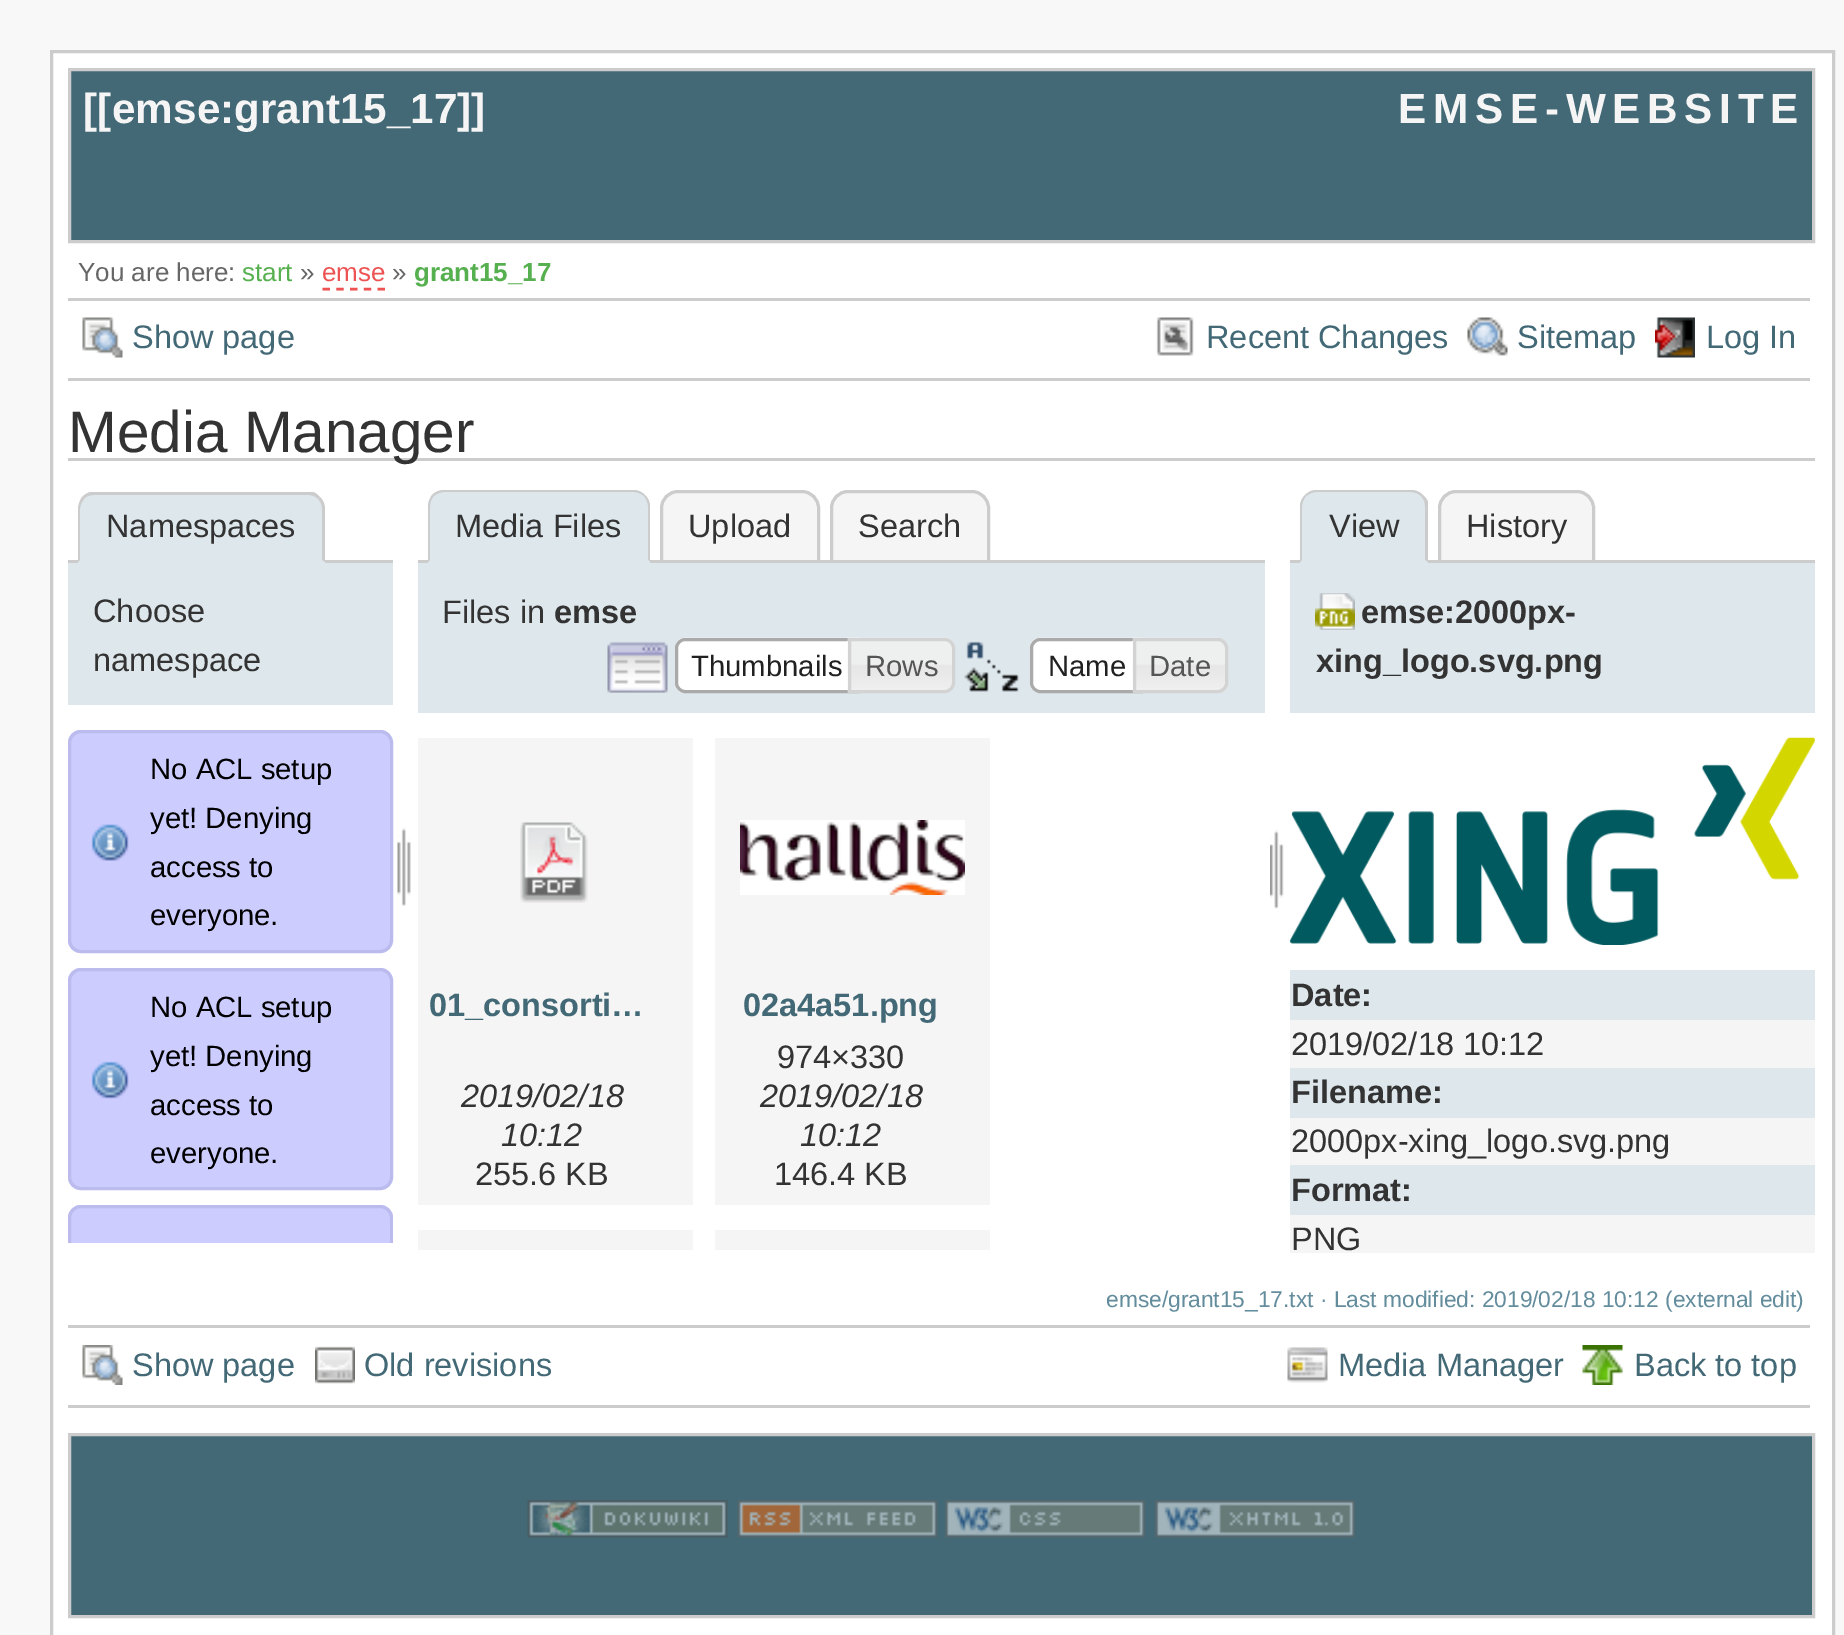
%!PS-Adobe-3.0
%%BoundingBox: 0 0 1844 1635
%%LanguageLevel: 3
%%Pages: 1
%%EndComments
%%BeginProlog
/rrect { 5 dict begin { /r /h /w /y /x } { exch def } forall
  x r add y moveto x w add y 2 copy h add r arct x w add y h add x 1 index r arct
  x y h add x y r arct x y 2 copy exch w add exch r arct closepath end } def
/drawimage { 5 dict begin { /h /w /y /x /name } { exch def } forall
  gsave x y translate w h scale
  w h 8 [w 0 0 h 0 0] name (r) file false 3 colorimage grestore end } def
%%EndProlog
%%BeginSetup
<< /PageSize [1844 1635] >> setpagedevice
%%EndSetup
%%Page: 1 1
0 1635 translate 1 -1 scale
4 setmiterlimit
0.973 setgray
0 0 1844 1635 rectfill
1 setgray
newpath 51.5 51.5 moveto 1833.5 51.5 lineto 1833.5 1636.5 lineto 51.5 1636.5 lineto closepath gsave fill grestore
0.8 setgray
3 setlinewidth
stroke
0.263 0.412 0.463 setrgbcolor
newpath 69.5 69.5 moveto 1813.5 69.5 lineto 1813.5 241.5 lineto 69.5 241.5 lineto closepath gsave fill grestore
0.8 setgray
stroke
0.929 0.325 0.325 setrgbcolor
2.5 setlinewidth
[7.5 6.25] 0 setdash
newpath 322.5 289 moveto 385 289 lineto stroke
0.8 setgray
68 298 1742 3 rectfill
68 378 1742 3 rectfill
(images/1.raw) 82 317 41 41 drawimage
(images/2.raw) 1156 317 38 39 drawimage
(images/3.raw) 1467 317 41 39 drawimage
(images/4.raw) 1655 317 40 41 drawimage
68 458 1747 3 rectfill
68 560 325 3 rectfill
0.871 0.906 0.925 setrgbcolor
newpath 96 493 moveto 307 493 lineto 317 493 325 501 325 511 curveto 325 563 lineto 78 563 lineto 78 511 lineto 78 501 86 493 96 493 curveto closepath fill
0.8 setgray
newpath 94 495 moveto 90 495 86 496 84 499 curveto 82 497 lineto 84 495 87 493 90 492 curveto 313 492 lineto 316 493 318 495 320 497 curveto 318 499 lineto 316 497 313 495 309 495 curveto closepath fill
newpath 325 562 moveto 325 509 lineto 325 504 323 500 320 497 curveto 318 499 lineto 321 502 322 505 322 509 curveto 322 560 lineto closepath fill
0.871 0.906 0.925 setrgbcolor
newpath 324 562 moveto 78 562 lineto 80 560 lineto 322 560 lineto closepath fill
0.8 setgray
newpath 78 562 moveto 80 560 lineto 80 509 lineto 80 505 82 502 84 499 curveto 82 497 lineto 80 500 78 505 78 509 curveto closepath fill
0.871 0.906 0.925 setrgbcolor
68 563 325 142 rectfill
0.8 0.8 1 setrgbcolor
68 730 325 223 13 rrect fill
(images/5.raw) 91 824 38 37 drawimage
0.733 0.733 0.933 setrgbcolor
3 setlinewidth
[] 0 setdash
69.5 731.5 322 220 11.5 rrect stroke
0.8 0.8 1 setrgbcolor
68 968 325 222 13 rrect fill
(images/6.raw) 91 1061 38 38 drawimage
0.733 0.733 0.933 setrgbcolor
69.5 969.5 322 219 11.5 rrect stroke
0.8 0.8 1 setrgbcolor
newpath 81 1205 moveto 380 1205 lineto 387 1205 393 1211 393 1218 curveto 393 1243 lineto 68 1243 lineto 68 1218 lineto 68 1211 74 1205 81 1205 curveto closepath fill
(images/7.raw) 397 827 14 79 drawimage
0.961 setgray
newpath 678 491.5 moveto 802 491.5 lineto 811 491.5 818.5 499 818.5 508 curveto 818.5 561.5 lineto 661.5 561.5 lineto 661.5 508 lineto 661.5 499 669 491.5 678 491.5 curveto closepath gsave fill grestore
0.8 setgray
stroke
0.961 setgray
newpath 848 491.5 moveto 972 491.5 lineto 981 491.5 988.5 499 988.5 508 curveto 988.5 561.5 lineto 831.5 561.5 lineto 831.5 508 lineto 831.5 499 839 491.5 848 491.5 curveto closepath gsave fill grestore
0.8 setgray
stroke
418 560 847 3 rectfill
0.871 0.906 0.925 setrgbcolor
newpath 446 490 moveto 632 490 lineto 642 490 650 498 650 508 curveto 650 563 lineto 428 563 lineto 428 508 lineto 428 498 436 490 446 490 curveto closepath fill
0.8 setgray
newpath 444 490 moveto 439 490 435 492 432 495 curveto 434 496 lineto 436 494 440 492 444 492 curveto 634 492 lineto 638 492 641 494 644 496 curveto 645 495 lineto 642 492 638 490 634 490 curveto closepath fill
newpath 650 562 moveto 650 506 lineto 650 502 648 498 645 495 curveto 644 496 lineto 646 499 648 502 648 506 curveto 648 560 lineto closepath fill
0.871 0.906 0.925 setrgbcolor
newpath 650 562 moveto 428 562 lineto 430 560 lineto 648 560 lineto closepath fill
0.8 setgray
newpath 432 495 moveto 430 498 428 502 428 506 curveto 428 562 lineto 430 560 lineto 430 506 lineto 430 503 431 499 434 496 curveto closepath fill
0.871 0.906 0.925 setrgbcolor
418 563 847 150 rectfill
(images/8.raw) 607 641 61 52 drawimage
1 setgray
newpath 685 638 moveto 860 638 lineto 860 693 lineto 685 693 lineto 679.5 693 675 688.5 675 683 curveto 675 648 lineto 675 642.5 679.5 638 685 638 curveto closepath fill
(images/9.raw) 675 637 185 49 drawimage
0.667 setgray
newpath 685 639.5 moveto 858.5 639.5 lineto 858.5 691.5 lineto 685 691.5 lineto 680.5 691.5 676.5 687.5 676.5 683 curveto 676.5 648 lineto 676.5 643.5 680.5 639.5 685 639.5 curveto closepath stroke
(images/10.raw) 847 637 108 56 drawimage
0.827 setgray
newpath 849.5 639.5 moveto 945 639.5 lineto 949.5 639.5 953.5 643.5 953.5 648 curveto 953.5 683 lineto 953.5 687.5 949.5 691.5 945 691.5 curveto 849.5 691.5 lineto closepath stroke
(images/11.raw) 964 641 55 51 drawimage
1 setgray
newpath 1040 638 moveto 1143 638 lineto 1143 693 lineto 1040 693 lineto 1034.5 693 1030 688.5 1030 683 curveto 1030 648 lineto 1030 642.5 1034.5 638 1040 638 curveto closepath fill
(images/12.raw) 1030 637 112 49 drawimage
0.667 setgray
newpath 1040 639.5 moveto 1141.5 639.5 lineto 1141.5 691.5 lineto 1040 691.5 lineto 1035.5 691.5 1031.5 687.5 1031.5 683 curveto 1031.5 648 lineto 1031.5 643.5 1035.5 639.5 1040 639.5 curveto closepath stroke
(images/13.raw) 1132 637 95 56 drawimage
0.827 setgray
newpath 1134.5 639.5 moveto 1218 639.5 lineto 1222.5 639.5 1226.5 643.5 1226.5 648 curveto 1226.5 683 lineto 1226.5 687.5 1222.5 691.5 1218 691.5 curveto 1134.5 691.5 lineto closepath stroke
(images/14.raw) 1270 830 14 79 drawimage
0.961 setgray
418 738 275 467 rectfill
(images/15.raw) 520 822 68 81 drawimage
715 738 275 467 rectfill
(images/16.raw) 740 820 225 75 drawimage
418 1230 275 20 rectfill
715 1230 275 20 rectfill
newpath 1456 491.5 moveto 1577 491.5 lineto 1586 491.5 1593.5 499 1593.5 508 curveto 1593.5 561.5 lineto 1439.5 561.5 lineto 1439.5 508 lineto 1439.5 499 1447 491.5 1456 491.5 curveto closepath gsave fill grestore
0.8 setgray
stroke
1290 560 525 3 rectfill
0.871 0.906 0.925 setrgbcolor
newpath 1318 490 moveto 1410 490 lineto 1420 490 1428 498 1428 508 curveto 1428 563 lineto 1300 563 lineto 1300 508 lineto 1300 498 1308 490 1318 490 curveto closepath fill
0.8 setgray
newpath 1316 490 moveto 1312 490 1308 492 1305 495 curveto 1306 496 lineto 1309 494 1312 492 1316 492 curveto 1411 492 lineto 1415 492 1419 494 1421 496 curveto 1423 495 lineto 1420 492 1416 490 1411 490 curveto closepath fill
newpath 1428 562 moveto 1425 560 lineto 1425 506 lineto 1425 503 1424 499 1421 496 curveto 1423 495 lineto 1425 497 1427 499 1428 502 curveto closepath fill
0.871 0.906 0.925 setrgbcolor
newpath 1427 562 moveto 1300 562 lineto 1302 560 lineto 1425 560 lineto closepath fill
0.8 setgray
newpath 1300 506 moveto 1300 562 lineto 1302 560 lineto 1302 506 lineto 1302 502 1304 499 1306 496 curveto 1305 495 lineto 1302 498 1300 502 1300 506 curveto closepath fill
0.871 0.906 0.925 setrgbcolor
1290 563 525 150 rectfill
(images/17.raw) 1315 593 40 37 drawimage
(images/18.raw) 1290 737 525 208 drawimage
1290 970 525 50 rectfill
0.961 setgray
1290 1020 525 48 rectfill
0.871 0.906 0.925 setrgbcolor
1290 1068 525 50 rectfill
0.961 setgray
1290 1118 525 47 rectfill
0.871 0.906 0.925 setrgbcolor
1290 1165 525 50 rectfill
0.961 setgray
1290 1215 525 38 rectfill
0.8 setgray
68 1325 1742 3 rectfill
68 1405 1742 3 rectfill
(images/19.raw) 82 1345 41 40 drawimage
(images/20.raw) 315 1346 40 38 drawimage
(images/21.raw) 1287 1347 41 36 drawimage
(images/22.raw) 1582 1345 41 40 drawimage
0.263 0.412 0.463 setrgbcolor
newpath 69.5 1434.5 moveto 1813.5 1434.5 lineto 1813.5 1616.5 lineto 69.5 1616.5 lineto closepath gsave fill grestore
0.8 setgray
stroke
(images/23.raw) 527 1500 201 38 drawimage
(images/24.raw) 737 1500 201 38 drawimage
(images/25.raw) 945 1500 200 38 drawimage
(images/26.raw) 1155 1500 200 38 drawimage
/LiberationSans-Bold [42.25 0 0 -42.25 0 0] selectfont
0.961 setgray
83 123 moveto ([[) show
112 123 moveto (emse:grant15_17) show
457 123 moveto (]]) show
1398 123 moveto 6.75 0 (EMSE-WEBSITE) ashow
/LiberationSans-Regular [26 0 0 -26 0 0] selectfont
0.4 setgray
78 281 moveto (You are here:) show
0.337 0.69 0.31 setrgbcolor
242 281 moveto (start) show
0.4 setgray
300 281 moveto (») show
0.929 0.325 0.325 setrgbcolor
322 281 moveto (emse) show
0.4 setgray
392 281 moveto (») show
/LiberationSans-Bold [26 0 0 -26 0 0] selectfont
0.337 0.69 0.31 setrgbcolor
414 281 moveto (grant15_17) show
/LiberationSans-Regular [32.5 0 0 -32.5 0 0] selectfont
0.263 0.412 0.463 setrgbcolor
132 348 moveto (Show page) show
1206 348 moveto (Recent Changes) show
1517 348 moveto (Sitemap) show
1706 348 moveto (Log In) show
/LiberationSans-Regular [58.5 0 0 -58.5 0 0] selectfont
0.2 setgray
68 452 moveto (Media Manager) show
/LiberationSans-Regular [32.5 0 0 -32.5 0 0] selectfont
106 537 moveto (Namespaces) show
93 622 moveto (Choose) show
93 671 moveto (namespace) show
/LiberationSans-Regular [29.25 0 0 -29.25 0 0] selectfont
0 setgray
150 779 moveto (No ACL setup) show
150 828 moveto (yet! Denying) show
150 877 moveto (access to) show
150 925 moveto (everyone.) show
150 1017 moveto (No ACL setup) show
150 1066 moveto (yet! Denying) show
150 1115 moveto (access to) show
150 1163 moveto (everyone.) show
/LiberationSans-Regular [32.5 0 0 -32.5 0 0] selectfont
0.2 setgray
455 537 moveto (Media Files) show
688 537 moveto (Upload) show
858 537 moveto (Search) show
442 623 moveto (Files in) show
/LiberationSans-Bold [32.5 0 0 -32.5 0 0] selectfont
554 623 moveto (emse) show
/LiberationSans-Regular [29.25 0 0 -29.25 0 0] selectfont
0.129 setgray
691 676 moveto (Thumbnails) show
0.333 setgray
865 676 moveto (Rows) show
0.129 setgray
1048 676 moveto (Name) show
0.333 setgray
1149 676 moveto (Date) show
/LiberationSans-Bold [32.5 0 0 -32.5 0 0] selectfont
0.263 0.412 0.463 setrgbcolor
429 1016 moveto (01_consorti…) show
/LiberationSans-Italic [32.5 0 0 -32.5 0 0] selectfont
0.2 setgray
461 1107 moveto (2019/02/18) show
501 1146 moveto (10:12) show
/LiberationSans-Regular [32.5 0 0 -32.5 0 0] selectfont
475 1185 moveto (255.6 KB) show
/LiberationSans-Bold [32.5 0 0 -32.5 0 0] selectfont
0.263 0.412 0.463 setrgbcolor
743 1016 moveto (02a4a51.png) show
/LiberationSans-Regular [32.5 0 0 -32.5 0 0] selectfont
0.2 setgray
777 1068 moveto (974×330) show
/LiberationSans-Italic [32.5 0 0 -32.5 0 0] selectfont
760 1107 moveto (2019/02/18) show
800 1146 moveto (10:12) show
/LiberationSans-Regular [32.5 0 0 -32.5 0 0] selectfont
774 1185 moveto (146.4 KB) show
1329 537 moveto (View) show
1466 537 moveto (History) show
/LiberationSans-Bold [32.5 0 0 -32.5 0 0] selectfont
1361 623 moveto (emse:2000px-) show
1316 672 moveto (xing_logo.svg.png) show
1291 1006 moveto (Date:) show
/LiberationSans-Regular [32.5 0 0 -32.5 0 0] selectfont
1291 1055 moveto (2019/02/18 10:12) show
/LiberationSans-Bold [32.5 0 0 -32.5 0 0] selectfont
1291 1103 moveto (Filename:) show
/LiberationSans-Regular [32.5 0 0 -32.5 0 0] selectfont
1291 1152 moveto (2000px-xing_logo.svg.png) show
/LiberationSans-Bold [32.5 0 0 -32.5 0 0] selectfont
1291 1201 moveto (Format:) show
/LiberationSans-Regular [32.5 0 0 -32.5 0 0] selectfont
1291 1250 moveto (PNG) show
/LiberationSans-Regular [22.75 0 0 -22.75 0 0] selectfont
0.388 0.549 0.612 setrgbcolor
1106 1307 moveto (emse/grant15_17.txt · Last modified: 2019/02/18 10:12 \(external edit\)) show
/LiberationSans-Regular [32.5 0 0 -32.5 0 0] selectfont
0.263 0.412 0.463 setrgbcolor
132 1376 moveto (Show page) show
364 1376 moveto (Old revisions) show
gsave
68 730 325 513 rectclip
0.733 0.733 0.933 setrgbcolor
69.5 1206.5 322 222 11.5 rrect stroke
grestore
1338 1376 moveto (Media Manager) show
1634 1376 moveto (Back to top) show
showpage
%%EOF
